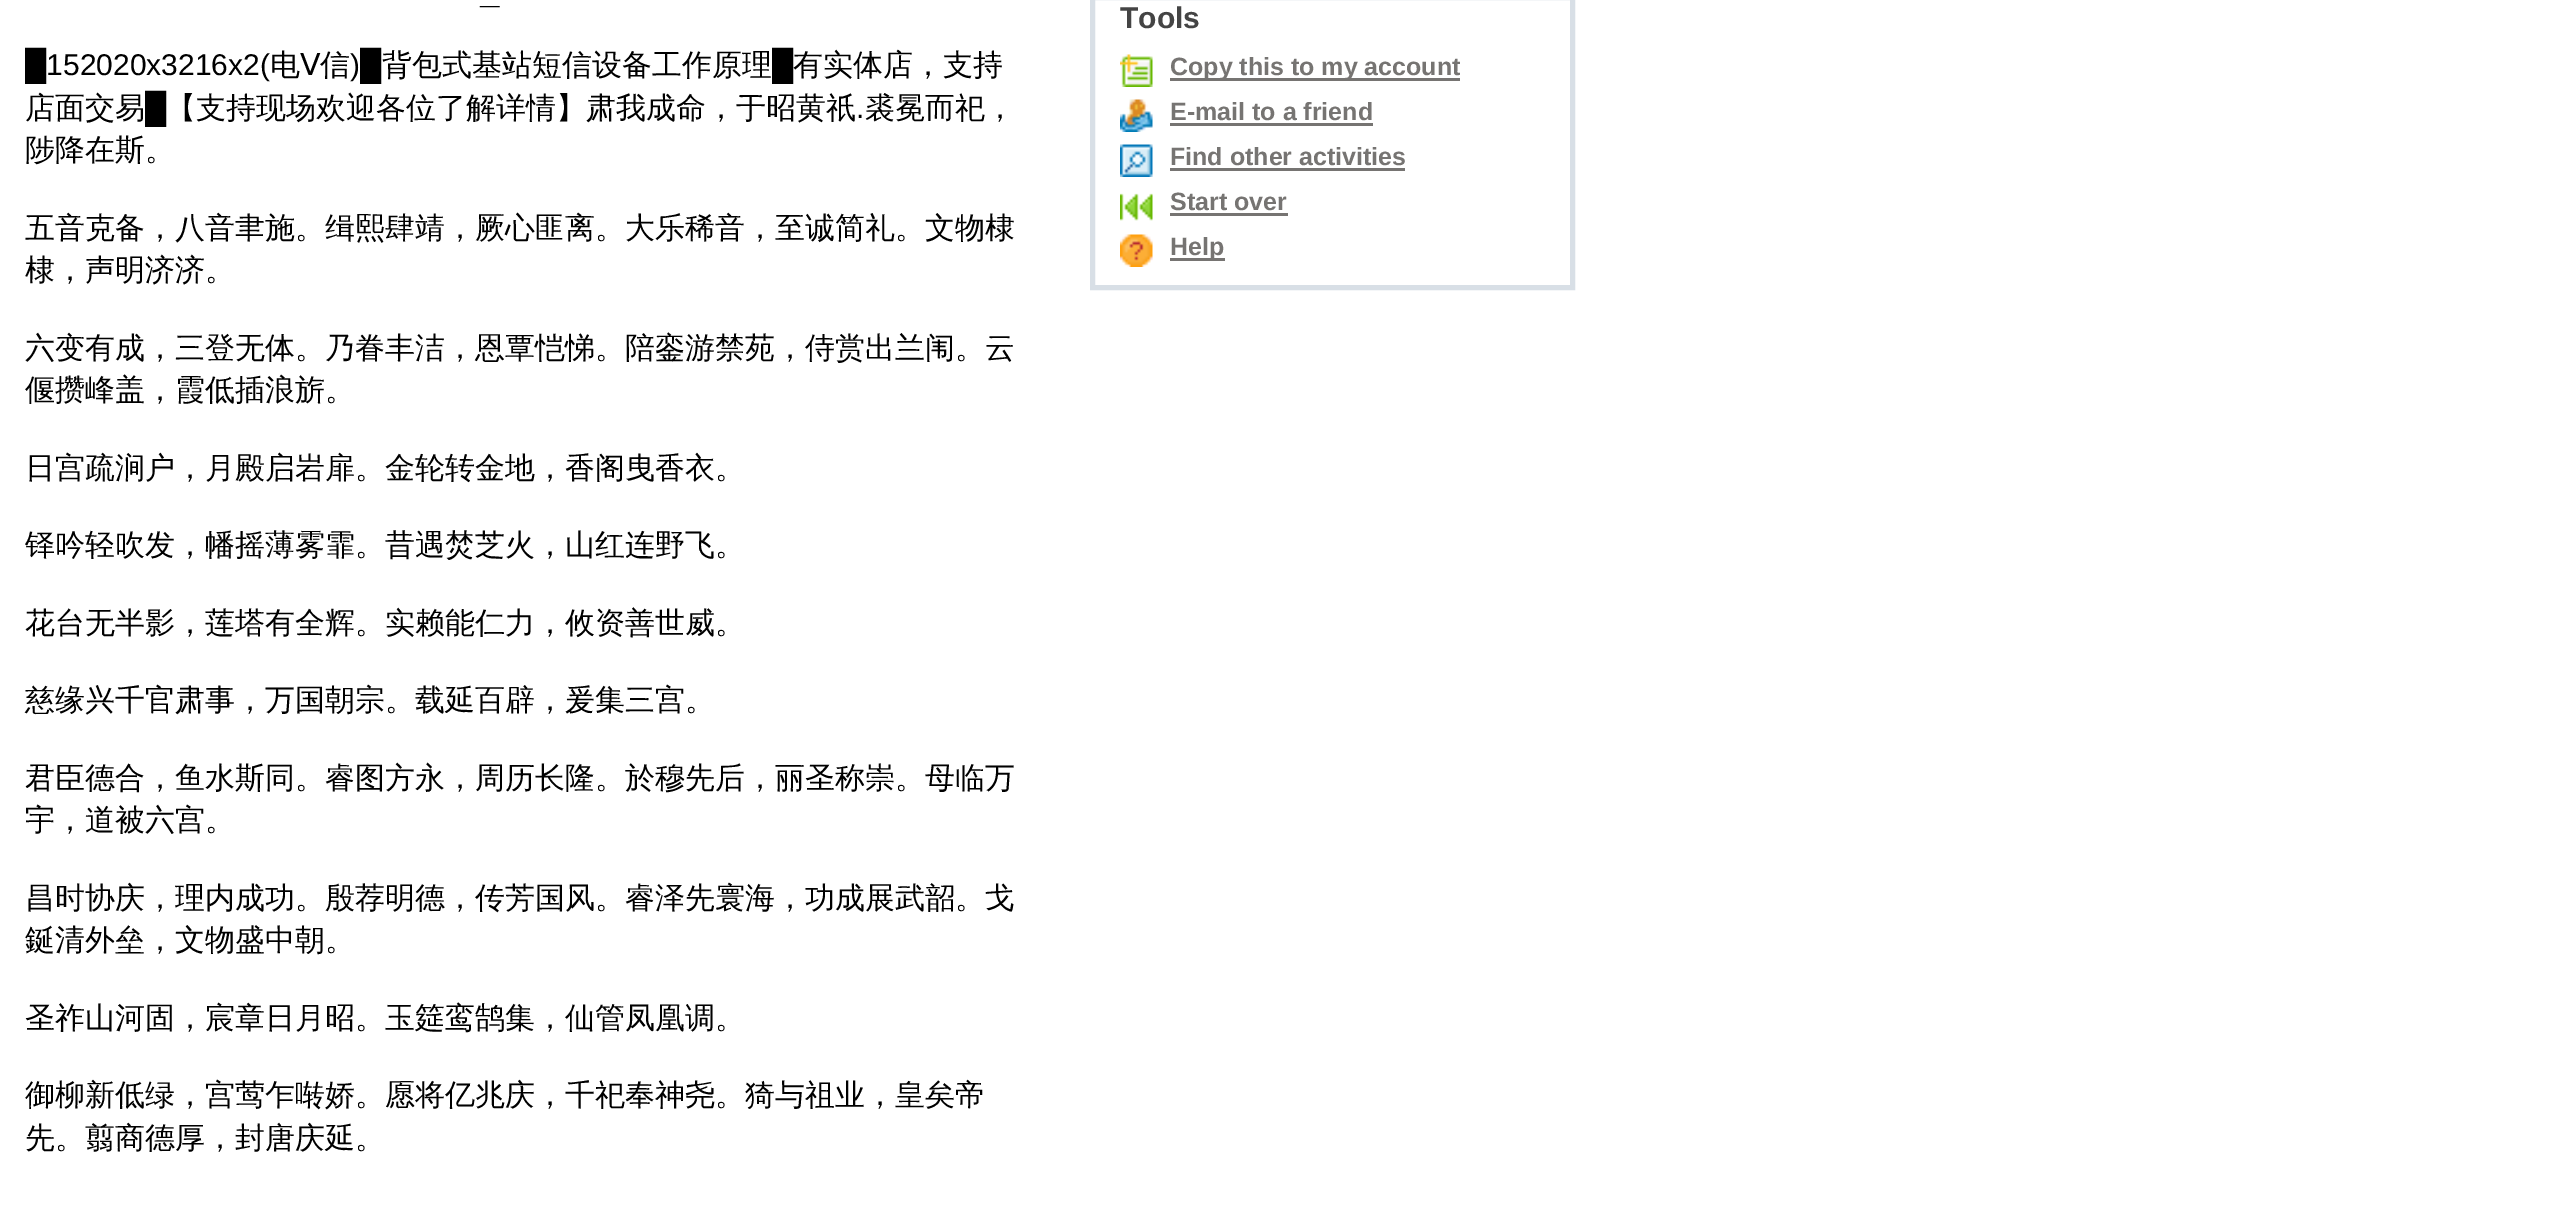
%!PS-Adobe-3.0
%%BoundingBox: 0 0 2554 1208
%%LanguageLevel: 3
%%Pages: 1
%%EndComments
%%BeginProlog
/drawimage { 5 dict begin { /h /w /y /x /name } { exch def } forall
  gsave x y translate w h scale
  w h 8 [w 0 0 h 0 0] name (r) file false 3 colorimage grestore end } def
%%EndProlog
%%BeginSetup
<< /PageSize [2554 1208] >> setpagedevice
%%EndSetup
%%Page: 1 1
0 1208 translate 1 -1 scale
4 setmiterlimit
1 setgray
0 0 2554 1208 rectfill
0.847 0.875 0.902 setrgbcolor
5 setlinewidth
1092.5 -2.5 480 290 rectstroke
(images/1.raw) 1120 54 33 33 drawimage
0.463 0.455 0.447 setrgbcolor
1170 78 290 3 rectfill
(images/2.raw) 1120 99 33 33 drawimage
1170 123 203 3 rectfill
(images/3.raw) 1120 144 33 33 drawimage
1170 168 235 3 rectfill
(images/4.raw) 1120 193 33 28 drawimage
1170 213 118 3 rectfill
(images/5.raw) 1120 234 33 33 drawimage
1170 258 55 3 rectfill
/LiberationSans-Bold [35 0 0 -35 0 0] selectfont
0 setgray
480 3 moveto (_) show
/LiberationSans-Regular [30 0 0 -30 0 0] selectfont
25 75 moveto (█152020x3216x2\() show
/WenQuanYiZenHei-Medium [30 0 0 -30 0 0] selectfont
270 75 moveto (电) show
/DejaVuSans-Regular [30 0 0 -30 0 0] selectfont
300 75 moveto (Ⅴ) show
/WenQuanYiZenHei-Medium [30 0 0 -30 0 0] selectfont
320 75 moveto (信) show
/LiberationSans-Regular [30 0 0 -30 0 0] selectfont
350 75 moveto (\)█) show
/WenQuanYiZenHei-Medium [30 0 0 -30 0 0] selectfont
382 75 moveto (背包式基站短信设备工作原理) show
/LiberationSans-Regular [30 0 0 -30 0 0] selectfont
772 75 moveto (█) show
/WenQuanYiZenHei-Medium [30 0 0 -30 0 0] selectfont
793 75 moveto (有实体店，支持) show
25 118 moveto (店面交易) show
/LiberationSans-Regular [30 0 0 -30 0 0] selectfont
145 118 moveto (█) show
/WenQuanYiZenHei-Medium [30 0 0 -30 0 0] selectfont
166 118 moveto (【支持现场欢迎各位了解详情】肃我成命，于昭黄祇) show
/LiberationSans-Regular [30 0 0 -30 0 0] selectfont
856 118 moveto (.) show
/WenQuanYiZenHei-Medium [30 0 0 -30 0 0] selectfont
865 118 moveto (裘冕而祀，) show
25 160 moveto (陟降在斯。) show
25 238 moveto (五音克备，八音聿施。缉熙肆靖，厥心匪离。大乐稀音，至诚简礼。文物棣) show
25 280 moveto (棣，声明济济。) show
25 358 moveto (六变有成，三登无体。乃眷丰洁，恩覃恺悌。陪銮游禁苑，侍赏出兰闱。云) show
25 400 moveto (偃攒峰盖，霞低插浪旂。) show
25 478 moveto (日宫疏涧户，月殿启岩扉。金轮转金地，香阁曳香衣。) show
25 555 moveto (铎吟轻吹发，幡摇薄雾霏。昔遇焚芝火，山红连野飞。) show
25 633 moveto (花台无半影，莲塔有全辉。实赖能仁力，攸资善世威。) show
25 710 moveto (慈缘兴千官肃事，万国朝宗。载延百辟，爰集三宫。) show
25 788 moveto (君臣德合，鱼水斯同。睿图方永，周历长隆。於穆先后，丽圣称崇。母临万) show
25 830 moveto (宇，道被六宫。) show
25 908 moveto (昌时协庆，理内成功。殷荐明德，传芳国风。睿泽先寰海，功成展武韶。戈) show
25 950 moveto (鋋清外垒，文物盛中朝。) show
25 1028 moveto (圣祚山河固，宸章日月昭。玉筵鸾鹄集，仙管凤凰调。) show
25 1105 moveto (御柳新低绿，宫莺乍啭娇。愿将亿兆庆，千祀奉神尧。猗与祖业，皇矣帝) show
25 1148 moveto (先。翦商德厚，封唐庆延。) show
/LiberationSans-Bold [30 0 0 -30 0 0] selectfont
0.267 setgray
1120 28 moveto (Tools) show
/LiberationSans-Bold [25 0 0 -25 0 0] selectfont
0.463 0.455 0.447 setrgbcolor
1170 75 moveto (Copy this to my account) show
1170 120 moveto (E-mail to a friend) show
1170 165 moveto (Find other activities) show
1170 210 moveto (Start over) show
1170 255 moveto (Help) show
showpage
%%EOF
